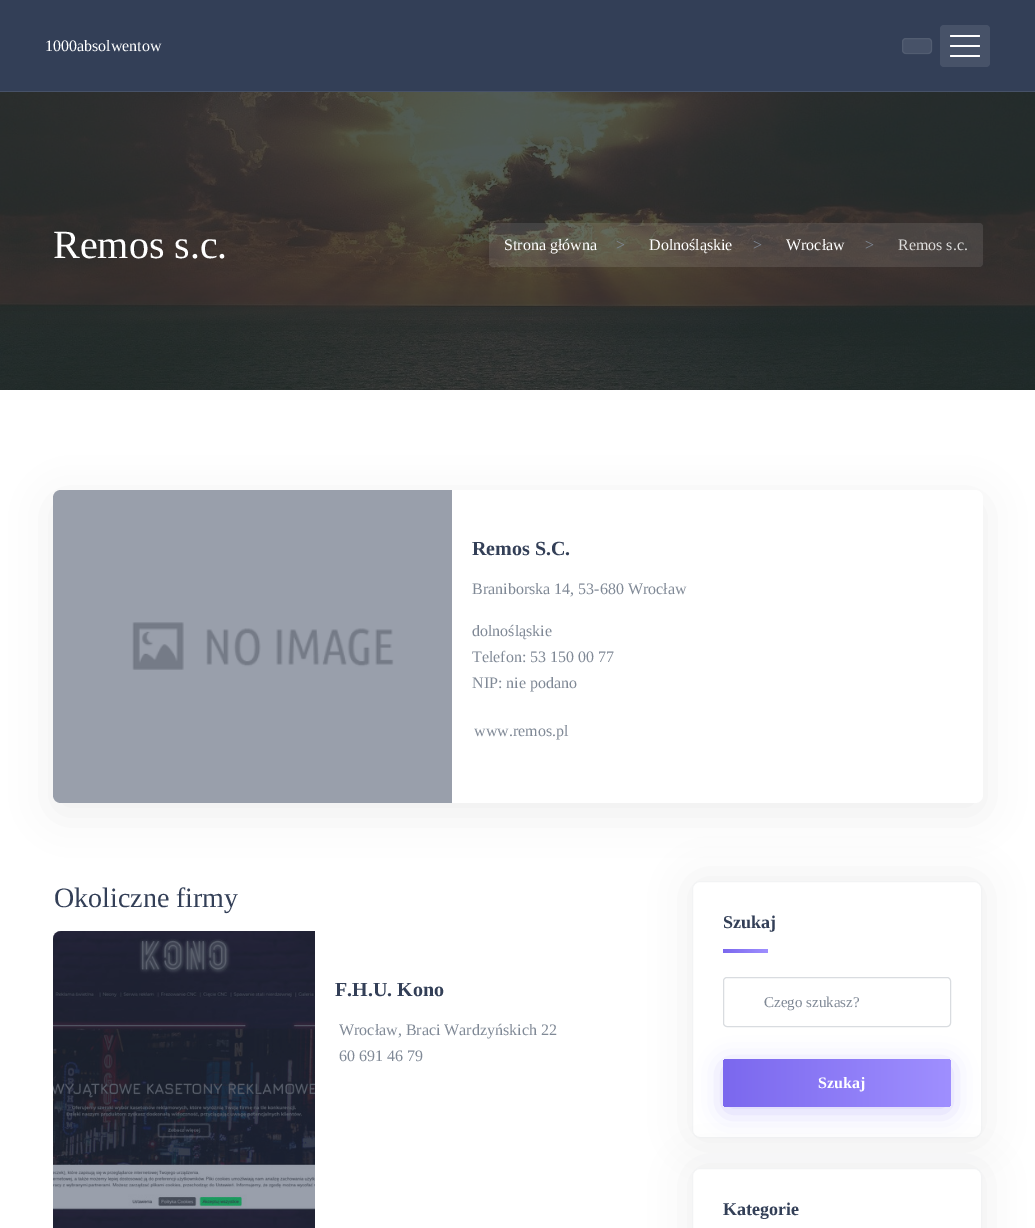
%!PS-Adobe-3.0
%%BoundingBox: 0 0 1035 1228
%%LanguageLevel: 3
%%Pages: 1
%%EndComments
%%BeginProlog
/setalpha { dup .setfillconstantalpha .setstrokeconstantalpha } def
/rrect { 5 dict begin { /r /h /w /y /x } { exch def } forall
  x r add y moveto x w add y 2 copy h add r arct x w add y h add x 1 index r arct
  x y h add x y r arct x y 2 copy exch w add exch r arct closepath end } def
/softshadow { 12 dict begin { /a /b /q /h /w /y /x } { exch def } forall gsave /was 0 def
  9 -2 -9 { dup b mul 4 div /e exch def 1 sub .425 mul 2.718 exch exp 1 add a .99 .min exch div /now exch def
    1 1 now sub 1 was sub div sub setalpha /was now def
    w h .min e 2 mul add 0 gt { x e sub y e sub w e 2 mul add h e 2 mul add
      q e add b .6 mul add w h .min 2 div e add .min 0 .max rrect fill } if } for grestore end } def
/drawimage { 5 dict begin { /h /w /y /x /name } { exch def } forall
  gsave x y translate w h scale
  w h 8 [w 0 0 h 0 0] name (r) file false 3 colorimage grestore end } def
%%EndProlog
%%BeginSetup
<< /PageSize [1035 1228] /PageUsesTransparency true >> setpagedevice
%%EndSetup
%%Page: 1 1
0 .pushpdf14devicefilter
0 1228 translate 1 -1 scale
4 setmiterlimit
1 setgray
0 0 1035 1228 rectfill
0.2 0.247 0.341 setrgbcolor
0 0 1035 91 rectfill
0.278 0.322 0.408 setrgbcolor
902 38 30 16 4 rrect fill
0.2 setalpha
0.502 0.537 0.588 setrgbcolor
902.5 38.5 29 15 3.5 rrect stroke
1 setalpha
0.278 0.322 0.408 setrgbcolor
940 25 50 42 4 rrect fill
1 setgray
950 35 30 2 1 rrect fill
950 45 30 2 1 rrect fill
950 55 30 2 1 rrect fill
0.278 0.322 0.408 setrgbcolor
0 91 1035 1 rectfill
(images/1.raw) 0 92 1035 298 drawimage
0.1 setalpha
1 setgray
489 223 494 44 4 rrect fill
1 setalpha
0.322 0.333 0.353 setrgbcolor
53 500 930 313 8 20 0.1 softshadow
1 setgray
53 490 930 313 8 rrect fill
(images/2.raw) 132 622 262 48 drawimage
0.5 setalpha
0.2 0.247 0.341 setrgbcolor
newpath 61 490 moveto 452 490 lineto 452 803 lineto 61 803 lineto 56.5 803 53 799.5 53 795 curveto 53 498 lineto 53 493.5 56.5 490 61 490 curveto closepath fill
1 setalpha
(images/3.raw) 53 931 262 297 drawimage
0.5 setalpha
newpath 61 931 moveto 315 931 lineto 315 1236 lineto 61 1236 lineto 56.5 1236 53 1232.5 53 1228 curveto 53 939 lineto 53 934.5 56.5 931 61 931 curveto closepath fill
1 setalpha
0.322 0.333 0.353 setrgbcolor
692 881 290 257 8 20 0.1 softshadow
1 setgray
692.5 881.5 289 256 7.5 rrect gsave fill grestore
0.949 0.953 0.957 setrgbcolor
stroke
gsave 723 949 45 4 2 rrect clip newpath
<< /ShadingType 2 /ColorSpace /DeviceRGB /Coords [768 951 723 951] /Extend [true true] /Function << /FunctionType 2 /Domain [0 1] /C0 [0.624 0.561 1] /C1 [0.482 0.408 0.933] /N 1 >> >> shfill grestore
0.851 0.863 0.878 setrgbcolor
723.5 977.5 227 49 3.5 rrect stroke
0.482 0.408 0.933 setrgbcolor
723 1064 228 48 4 12.5 0.3 softshadow
gsave 723 1059 228 48 4 rrect clip newpath
<< /ShadingType 2 /ColorSpace /DeviceRGB /Coords [951 1083 723 1083] /Extend [true true] /Function << /FunctionType 2 /Domain [0 1] /C0 [0.624 0.561 1] /C1 [0.482 0.408 0.933] /N 1 >> >> shfill grestore
0.322 0.333 0.353 setrgbcolor
692 1168 290 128 8 20 0.1 softshadow
1 setgray
692.5 1168.5 289 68 7.5 rrect gsave fill grestore
0.949 0.953 0.957 setrgbcolor
stroke
/LiberationSerif-Regular [16 0 0 -16 0 0] selectfont
1 setgray
45 51 moveto (1000absolwentow) show
/LiberationSerif-Regular [40 0 0 -40 0 0] selectfont
53 258 moveto (Remos s.c.) show
/LiberationSerif-Regular [16 0 0 -16 0 0] selectfont
504 250 moveto (Strona główna) show
0.502 0.537 0.588 setrgbcolor
616 250 moveto (>) show
1 setgray
649 250 moveto (Dolnośląskie) show
0.502 0.537 0.588 setrgbcolor
753 250 moveto (>) show
1 setgray
786 250 moveto (Wrocław) show
0.502 0.537 0.588 setrgbcolor
865 250 moveto (>) show
0.859 0.855 0.851 setrgbcolor
898 250 moveto (Remos s.c.) show
/LiberationSerif-Bold [20 0 0 -20 0 0] selectfont
0.2 0.247 0.341 setrgbcolor
472 555 moveto (Remos S.C.) show
/LiberationSerif-Regular [16 0 0 -16 0 0] selectfont
0.502 0.537 0.588 setrgbcolor
472 594 moveto (Braniborska 14, 53-680 Wrocław) show
472 636 moveto (dolnośląskie) show
472 662 moveto (Telefon: 53 150 00 77) show
472 688 moveto (NIP: nie podano) show
474 736 moveto (www.remos.pl) show
/LiberationSerif-Regular [28 0 0 -28 0 0] selectfont
0.2 0.247 0.341 setrgbcolor
54 907 moveto (Okoliczne firmy) show
/LiberationSerif-Bold [20 0 0 -20 0 0] selectfont
335 996 moveto (F.H.U. Kono) show
/LiberationSerif-Regular [16 0 0 -16 0 0] selectfont
0.502 0.537 0.588 setrgbcolor
339 1035 moveto (Wrocław, Braci Wardzyńskich 22) show
339 1061 moveto (60 691 46 79) show
/LiberationSerif-Bold [18 0 0 -18 0 0] selectfont
0.2 0.247 0.341 setrgbcolor
723 928 moveto (Szukaj) show
/LiberationSerif-Regular [15 0 0 -15 0 0] selectfont
0.502 0.537 0.588 setrgbcolor
764 1007 moveto (Czego szukasz?) show
/LiberationSerif-Bold [16 0 0 -16 0 0] selectfont
1 setgray
818 1088 moveto (Szukaj) show
/LiberationSerif-Bold [18 0 0 -18 0 0] selectfont
0.2 0.247 0.341 setrgbcolor
723 1215 moveto (Kategorie) show
.poppdf14devicefilter showpage
%%EOF
